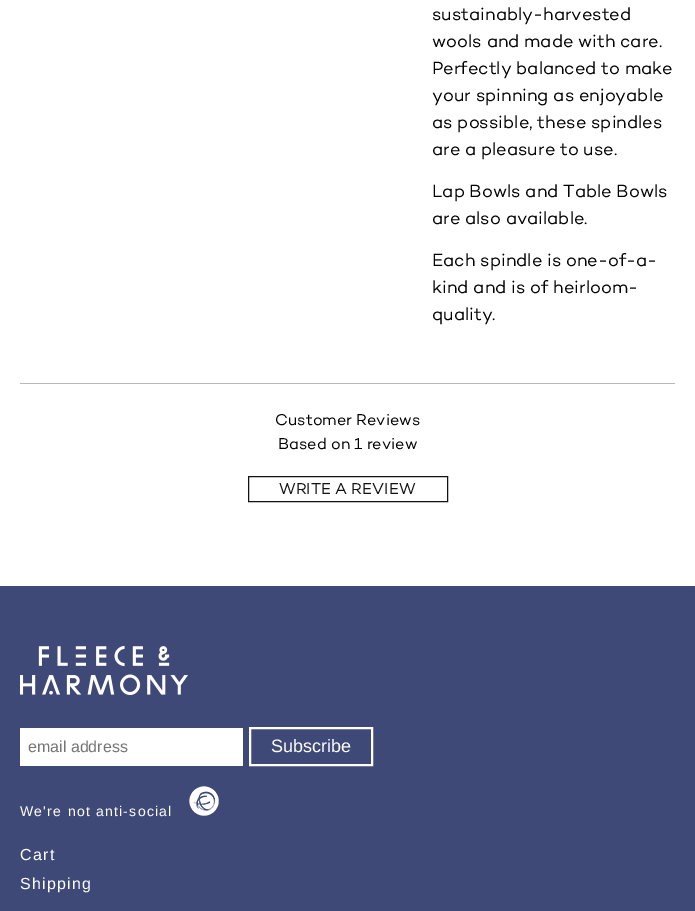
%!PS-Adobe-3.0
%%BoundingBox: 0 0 695 911
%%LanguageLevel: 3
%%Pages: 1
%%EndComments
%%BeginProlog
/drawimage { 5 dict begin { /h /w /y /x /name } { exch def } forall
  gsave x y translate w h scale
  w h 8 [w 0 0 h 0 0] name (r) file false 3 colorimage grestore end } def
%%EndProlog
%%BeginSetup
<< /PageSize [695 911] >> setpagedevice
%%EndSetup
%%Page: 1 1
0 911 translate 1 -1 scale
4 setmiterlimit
1 setgray
0 0 695 911 rectfill
0.725 setgray
20 383 655 1 rectfill
0.071 setgray
248.5 476.5 199 25 rectstroke
0.247 0.286 0.467 setrgbcolor
0 586 695 325 rectfill
(images/1.raw) 20 646 168 49 drawimage
1 setgray
20 728 223 38 rectfill
2 setlinewidth
250 728 122 37 rectstroke
(images/2.raw) 189 786 30 30 drawimage
/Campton-Regular [18 0 0 -18 0 0] selectfont
0 setgray
432 20 moveto (sustainably-harvested) show
432 47 moveto (wools and made with care.) show
432 74 moveto (Perfectly balanced to make) show
432 101 moveto (your spinning as enjoyable) show
432 128 moveto (as possible, these spindles) show
432 155 moveto (are a pleasure to use.) show
432 197 moveto (Lap Bowls and Table Bowls) show
432 224 moveto (are also available.) show
432 266 moveto (Each spindle is one-of-a-) show
432 293 moveto (kind and is of heirloom-) show
432 320 moveto (quality.) show
/Campton-Regular [16 0 0 -16 0 0] selectfont
275 425 moveto (Customer Reviews) show
278 449 moveto (Based on 1 review) show
0.071 setgray
279 494 moveto (WRITE A REVIEW) show
/LiberationSans-Regular [16 0 0 -16 0 0] selectfont
0.459 setgray
28 752 moveto (email address) show
/LiberationSans-Regular [18 0 0 -18 0 0] selectfont
1 setgray
271 752 moveto (Subscribe) show
/LiberationSans-Regular [14 0 0 -14 0 0] selectfont
20 816 moveto 1.25 0 (We're not anti-social) ashow
/LiberationSans-Regular [16 0 0 -16 0 0] selectfont
20 860 moveto 1.25 0 (Cart) ashow
20 889 moveto 1.25 0 (Shipping) ashow
showpage
%%EOF
